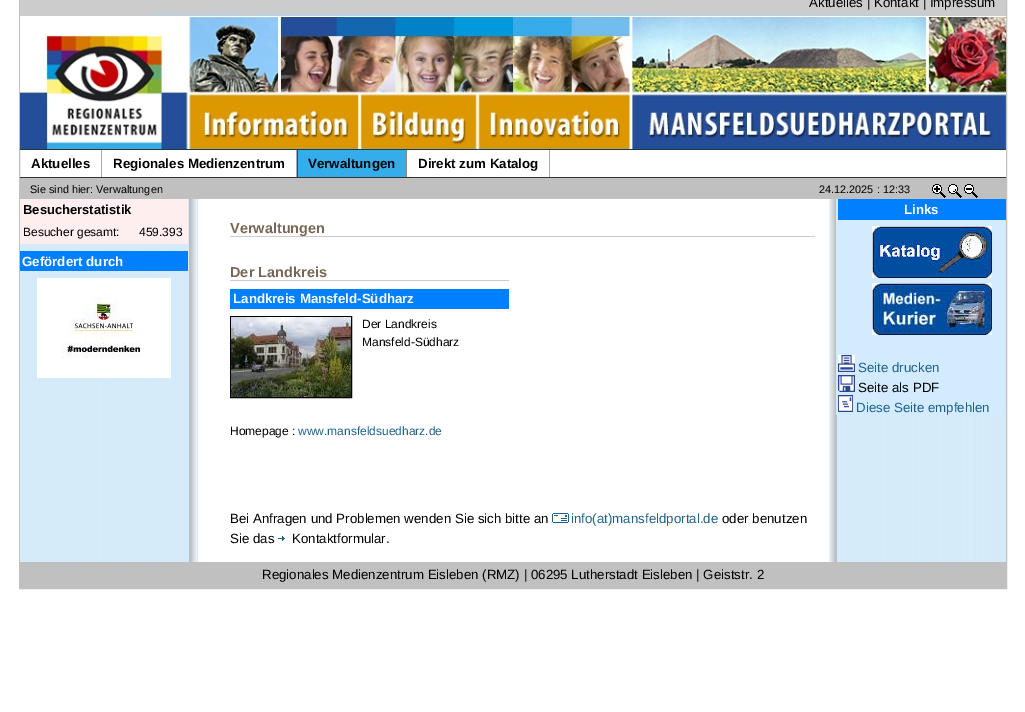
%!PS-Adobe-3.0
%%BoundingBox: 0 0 1025 712
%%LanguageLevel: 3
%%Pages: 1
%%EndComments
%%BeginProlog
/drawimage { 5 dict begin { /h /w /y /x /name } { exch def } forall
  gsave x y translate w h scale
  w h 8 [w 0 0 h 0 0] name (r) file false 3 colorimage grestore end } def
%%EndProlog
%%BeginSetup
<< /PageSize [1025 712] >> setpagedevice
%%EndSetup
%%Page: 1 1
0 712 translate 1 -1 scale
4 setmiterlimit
1 setgray
0 0 1025 712 rectfill
0.753 setgray
19.5 -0.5 987 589 rectstroke
(images/1.raw) 20 0 986 149 drawimage
0.2 setgray
20 149 986 1 rectfill
20 177 986 1 rectfill
0.667 setgray
101 150 1 27 rectfill
296 150 1 27 rectfill
0.208 0.678 0.918 setrgbcolor
298 150 108 27 rectfill
0.533 setgray
406 150 1 27 rectfill
0.267 setgray
297 150 1 27 rectfill
0.667 setgray
549 150 1 27 rectfill
(images/2.raw) 20 199 178 363 drawimage
0.753 setgray
20 178 986 21 rectfill
(images/3.raw) 932 184 14 14 drawimage
(images/4.raw) 948 184 14 14 drawimage
(images/5.raw) 964 184 14 14 drawimage
1 0.933 0.933 setrgbcolor
20 199 168 21 rectfill
20 220 168 24 rectfill
0 0.502 1 setrgbcolor
20 251 168 20 rectfill
(images/6.raw) 37 278 134 100 drawimage
(images/7.raw) 829 199 177 363 drawimage
0.8 setgray
230 236 585 1 rectfill
230 280 279 1 rectfill
0 0.502 1 setrgbcolor
230 289 279 20 rectfill
0 setgray
230.5 316.5 121 81 rectstroke
(images/8.raw) 231 317 120 80 drawimage
(images/9.raw) 552 513 17 10 drawimage
(images/10.raw) 278 536 7 5 drawimage
0.824 0.922 1 setrgbcolor
836 199 170 216 rectfill
0 0.502 1 setrgbcolor
838 199 168 21 rectfill
(images/11.raw) 872 226 120 52 drawimage
(images/12.raw) 872 283 120 52 drawimage
(images/13.raw) 838 355 17 17 drawimage
(images/14.raw) 838 375 17 17 drawimage
(images/15.raw) 838 395 15 17 drawimage
0.753 setgray
20 562 986 26 rectfill
/LiberationSans-Regular [13.3 0 0 -13.3 0 0] selectfont
0 setgray
809 7 moveto (Aktuelles | Kontakt | Impressum) show
/LiberationSans-Bold [13.3 0 0 -13.3 0 0] selectfont
31 168 moveto (Aktuelles) show
113 168 moveto (Regionales Medienzentrum) show
308 168 moveto (Verwaltungen) show
418 168 moveto (Direkt zum Katalog) show
/LiberationSans-Regular [10.9 0 0 -10.9 0 0] selectfont
30 193 moveto (Sie sind hier: Verwaltungen) show
819 193 moveto (24.12.2025 : 12:33) show
/LiberationSans-Bold [13 0 0 -13 0 0] selectfont
23 214 moveto (Besucherstatistik) show
/LiberationSans-Regular [12 0 0 -12 0 0] selectfont
23 236 moveto (Besucher gesamt:) show
139 236 moveto (459.393) show
/LiberationSans-Bold [13.3 0 0 -13.3 0 0] selectfont
1 setgray
22 266 moveto (Gefördert durch) show
/LiberationSans-Bold [14.5 0 0 -14.5 0 0] selectfont
0.467 0.4 0.333 setrgbcolor
230 233 moveto (Verwaltungen) show
230 277 moveto (Der Landkreis) show
/LiberationSans-Bold [13.3 0 0 -13.3 0 0] selectfont
1 setgray
233 303 moveto (Landkreis Mansfeld-Südharz) show
/LiberationSans-Regular [12 0 0 -12 0 0] selectfont
0 setgray
362 328 moveto (Der Landkreis) show
362 346 moveto (Mansfeld-Südharz) show
230 435 moveto (Homepage :) show
0.118 0.384 0.537 setrgbcolor
298 435 moveto (www.mansfeldsuedharz.de) show
/LiberationSans-Regular [13.3 0 0 -13.3 0 0] selectfont
0 setgray
230 523 moveto (Bei Anfragen und Problemen wenden Sie sich bitte an) show
0.118 0.384 0.537 setrgbcolor
571 523 moveto (info\(at\)mansfeldportal.de) show
0 setgray
722 523 moveto (oder benutzen) show
230 543 moveto (Sie das) show
292 543 moveto (Kontaktformular.) show
/LiberationSans-Bold [13.3 0 0 -13.3 0 0] selectfont
1 setgray
904 214 moveto (Links) show
/LiberationSans-Regular [13.3 0 0 -13.3 0 0] selectfont
0.118 0.384 0.537 setrgbcolor
858 372 moveto (Seite drucken) show
0 setgray
858 392 moveto (Seite als PDF) show
0.118 0.384 0.537 setrgbcolor
856 412 moveto (Diese Seite empfehlen) show
0 setgray
262 579 moveto (Regionales Medienzentrum Eisleben \(RMZ\) | 06295 Lutherstadt Eisleben | Geiststr. 2) show
showpage
%%EOF
